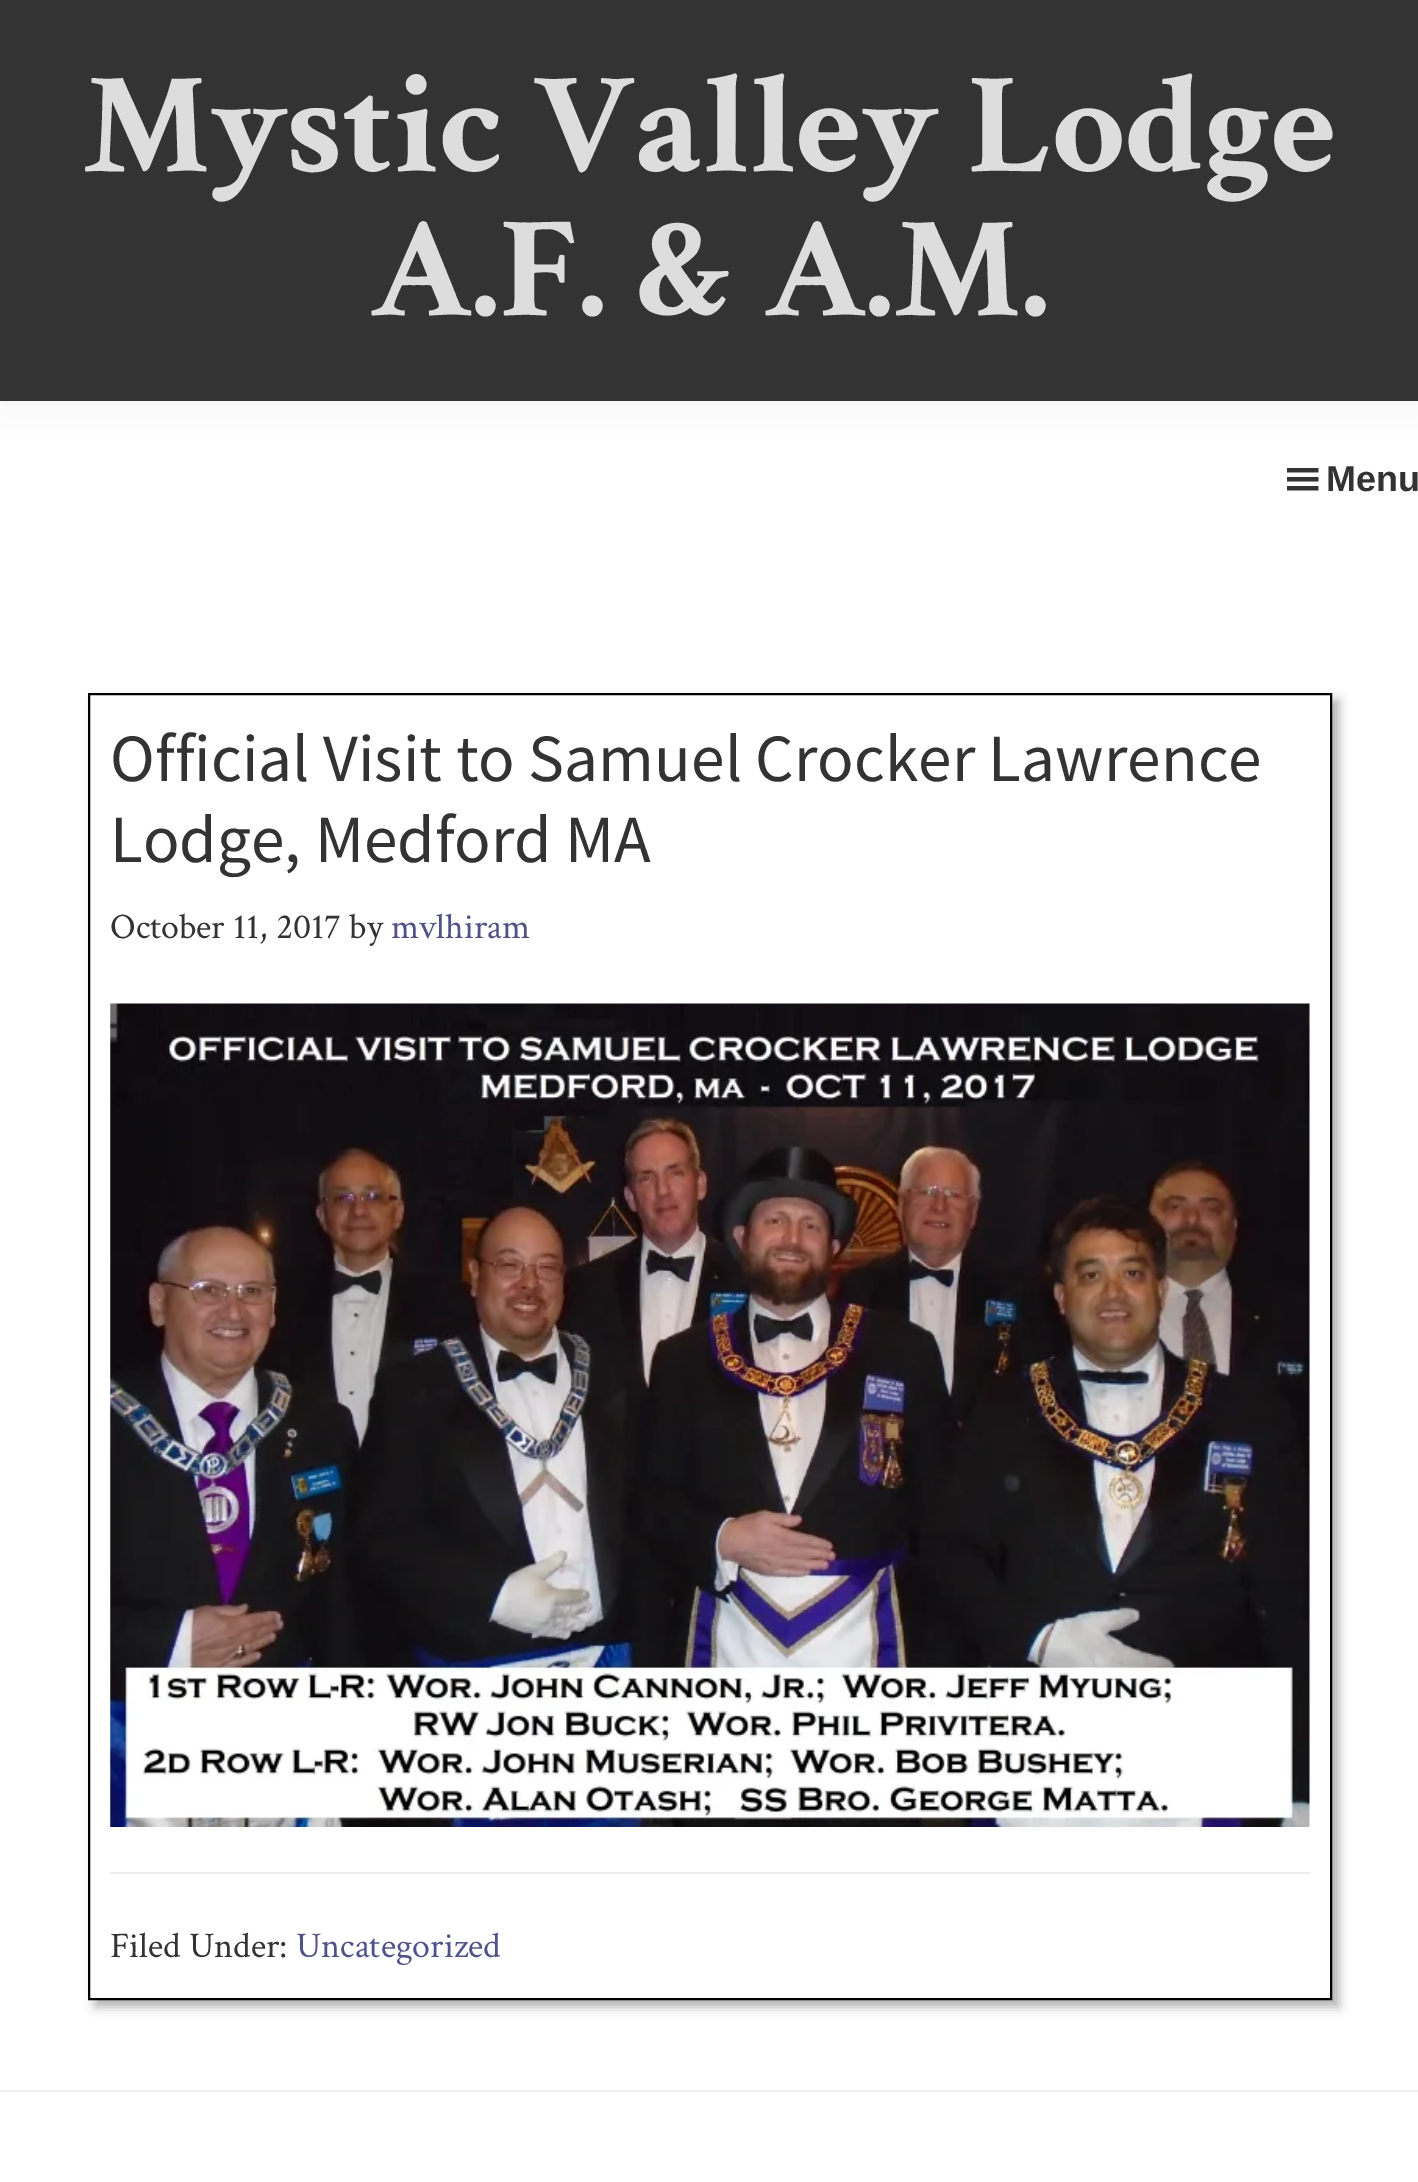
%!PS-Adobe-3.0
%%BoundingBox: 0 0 1418 2182
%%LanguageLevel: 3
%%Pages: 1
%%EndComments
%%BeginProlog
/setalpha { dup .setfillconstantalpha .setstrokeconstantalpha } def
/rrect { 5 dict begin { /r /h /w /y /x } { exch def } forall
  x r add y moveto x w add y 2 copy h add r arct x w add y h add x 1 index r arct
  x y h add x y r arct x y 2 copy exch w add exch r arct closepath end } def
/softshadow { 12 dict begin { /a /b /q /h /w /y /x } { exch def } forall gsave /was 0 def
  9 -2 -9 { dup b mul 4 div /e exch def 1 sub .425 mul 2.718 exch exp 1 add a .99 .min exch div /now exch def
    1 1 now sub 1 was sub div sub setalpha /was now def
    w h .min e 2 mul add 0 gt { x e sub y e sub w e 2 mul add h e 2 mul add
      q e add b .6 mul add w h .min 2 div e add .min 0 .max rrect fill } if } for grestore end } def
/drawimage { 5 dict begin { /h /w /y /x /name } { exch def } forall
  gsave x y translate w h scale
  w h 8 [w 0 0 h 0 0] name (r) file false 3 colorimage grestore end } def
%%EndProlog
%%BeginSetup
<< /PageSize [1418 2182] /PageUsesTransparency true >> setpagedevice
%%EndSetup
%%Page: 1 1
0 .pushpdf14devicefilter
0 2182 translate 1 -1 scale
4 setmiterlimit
1 setgray
0 0 1418 2182 rectfill
0 setgray
0 0 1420 401 0 22.5 0.05 softshadow
0.2 setgray
0 0 1418 401 rectfill
(images/1.raw) 1287 468 32 23 drawimage
gsave
newpath 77 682 moveto 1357 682 lineto 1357 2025 lineto 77 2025 lineto closepath 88 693 moveto 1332 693 lineto 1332 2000 lineto 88 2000 lineto closepath eoclip newpath
0.392 setgray
95 700 1244 1307 0 5.5 0.5 softshadow
grestore
0 setgray
2 setlinewidth
89 694 1242 1305 rectstroke
(images/2.raw) 110 1003 1200 824 drawimage
0.933 setgray
110 1872 1200 2 rectfill
0 2090 1418 2 rectfill
/CrimsonText-Bold [144 0 0 -144 0 0] selectfont
0.867 setgray
83 171 moveto (Mystic Valley Lodge) show
370 315 moveto (A.F. & A.M.) show
/LiberationSans-Bold [36 0 0 -36 0 0] selectfont
0.2 setgray
1326 491 moveto (Menu) show
/SourceSansPro-Regular [67.5 0 0 -67.5 0 0] selectfont
110 781 moveto (Official Visit to Samuel Crocker Lawrence) show
110 862 moveto (Lodge, Medford MA) show
/CrimsonText-Regular [36 0 0 -36 0 0] selectfont
110 938 moveto (October 11, 2017 by) show
0.318 0.325 0.533 setrgbcolor
391 938 moveto (mvlhiram) show
0.2 setgray
110 1957 moveto (Filed Under:) show
0.318 0.325 0.533 setrgbcolor
296 1957 moveto (Uncategorized) show
.poppdf14devicefilter showpage
%%EOF
